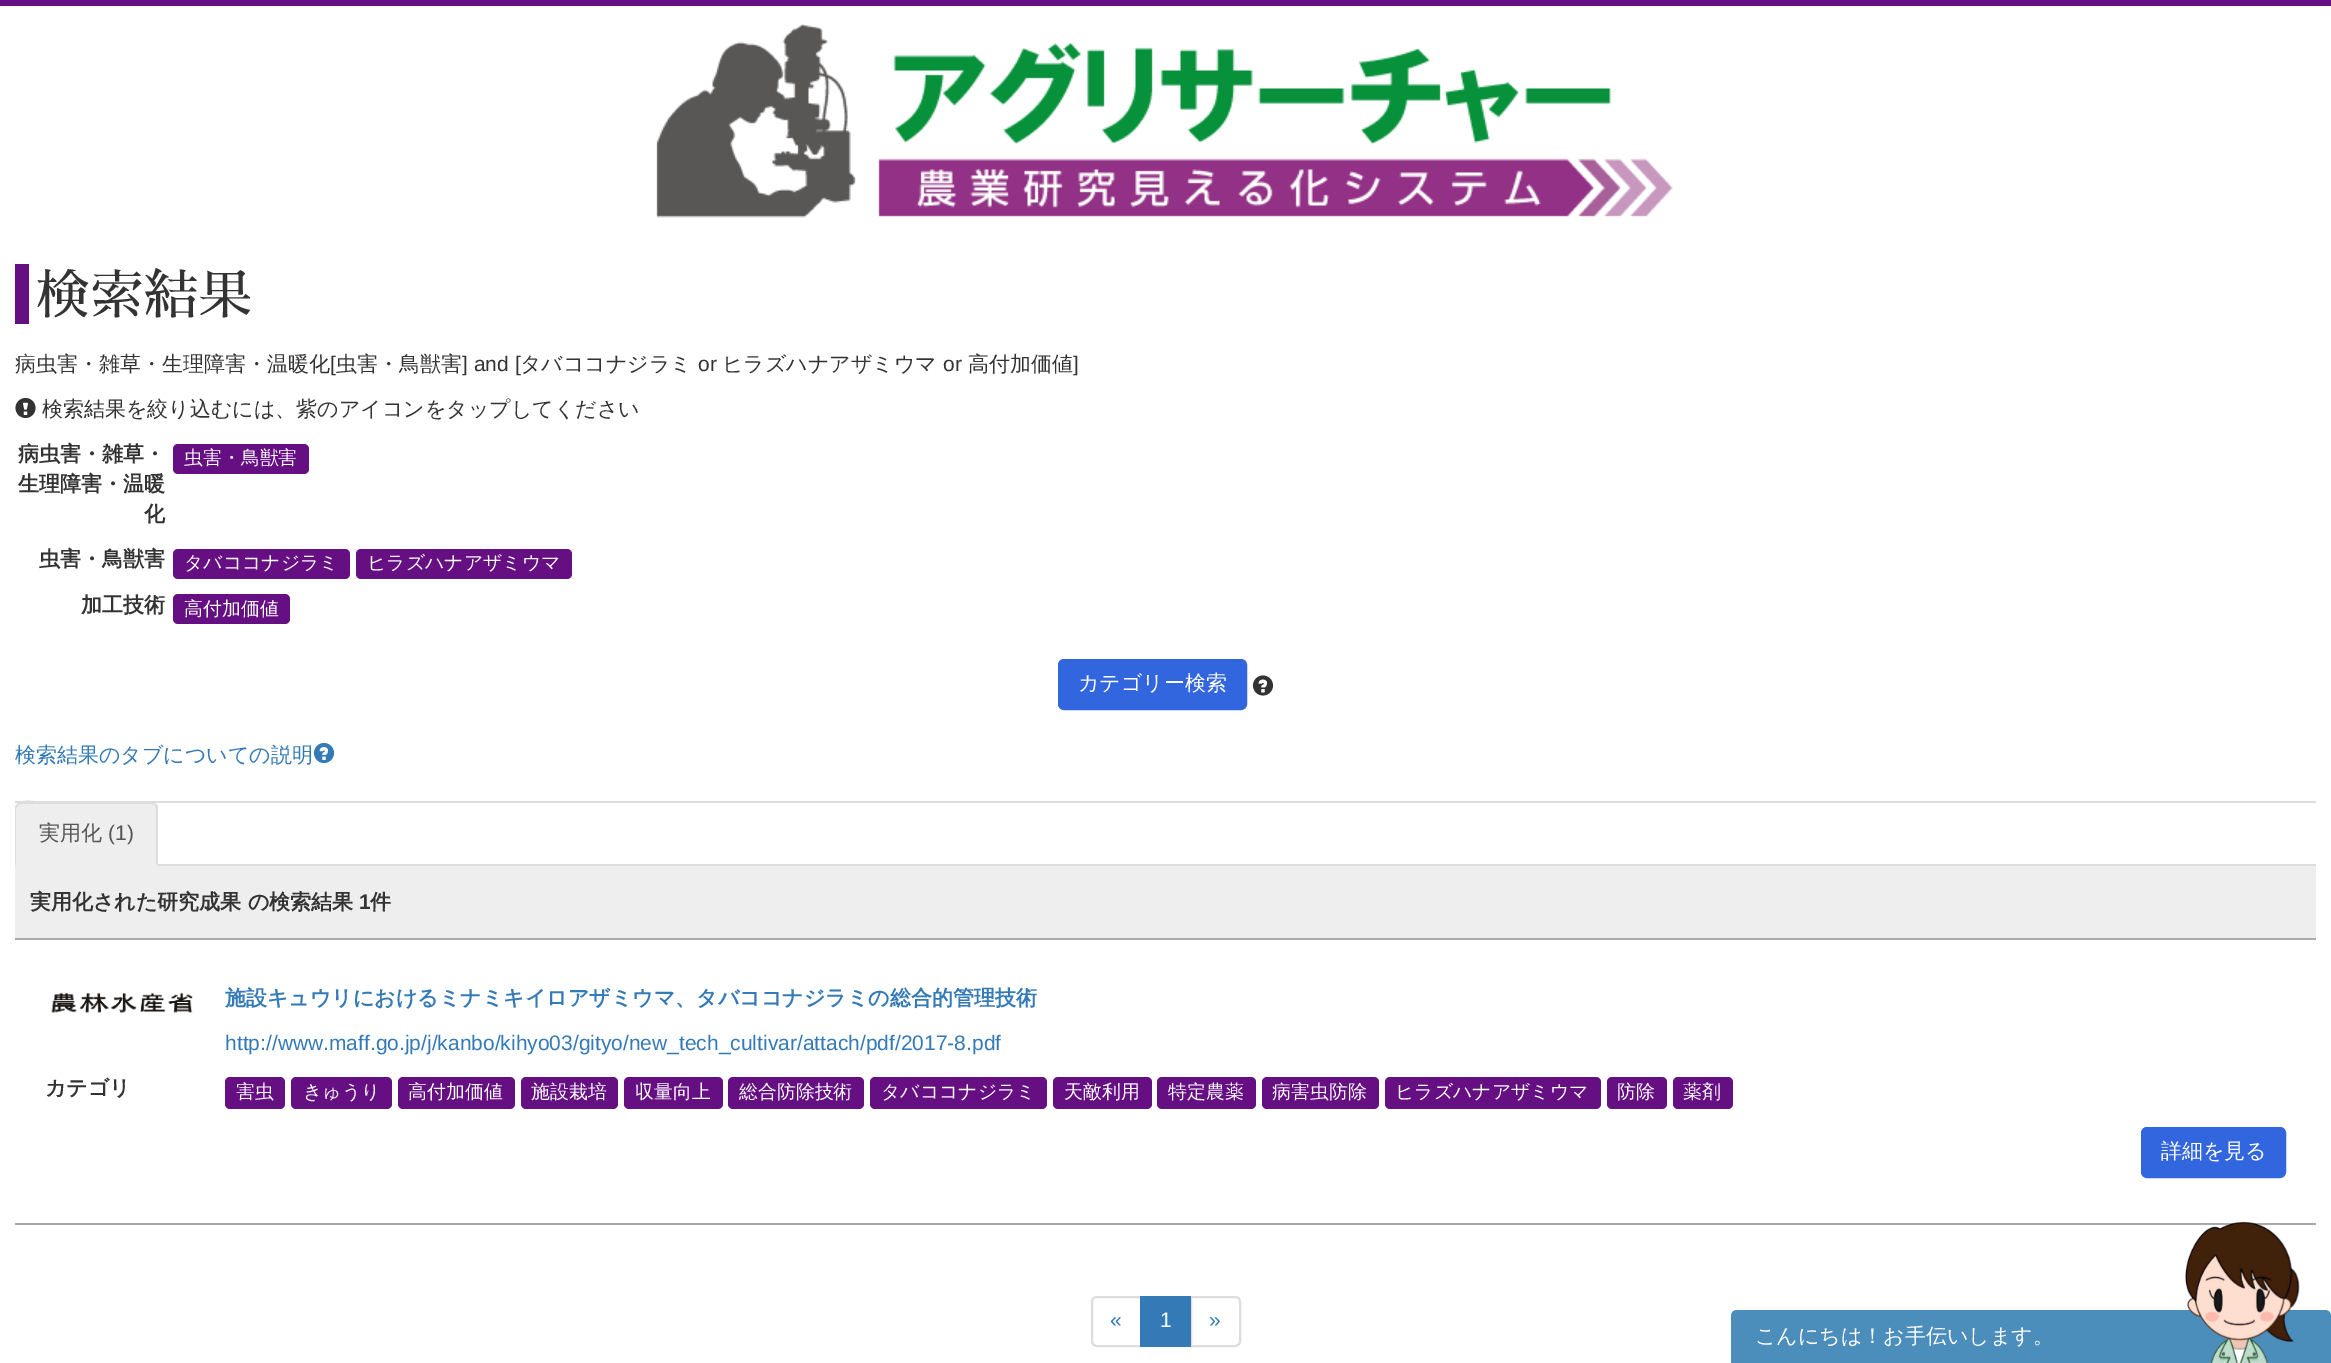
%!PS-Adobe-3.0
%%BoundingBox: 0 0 2331 1363
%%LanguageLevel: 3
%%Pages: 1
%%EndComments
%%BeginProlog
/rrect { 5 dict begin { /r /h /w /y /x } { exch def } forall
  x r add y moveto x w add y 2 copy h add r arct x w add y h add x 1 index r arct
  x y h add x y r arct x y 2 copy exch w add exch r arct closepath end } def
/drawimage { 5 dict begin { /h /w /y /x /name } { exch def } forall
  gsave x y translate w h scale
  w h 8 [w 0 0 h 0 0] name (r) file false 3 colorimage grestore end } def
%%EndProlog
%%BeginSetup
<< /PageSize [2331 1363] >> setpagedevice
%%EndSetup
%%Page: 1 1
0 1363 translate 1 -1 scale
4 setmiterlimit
1 setgray
0 0 2331 1363 rectfill
0.4 0.059 0.514 setrgbcolor
0 0 2331 6 rectfill
(images/1.raw) 656 23 1017 195 drawimage
15 264 14 60 rectfill
(images/2.raw) 15 397 21 22 drawimage
173 444 136 30 5 rrect fill
173 549 177 30 5 rrect fill
356 549 216 30 5 rrect fill
173 594 117 30 5 rrect fill
0.196 0.4 0.871 setrgbcolor
1059 660 187 49 5 rrect gsave fill grestore
2 setlinewidth
stroke
(images/3.raw) 1252 675 22 21 drawimage
(images/4.raw) 313 742 22 22 drawimage
0.867 setgray
15 801 2301 2 rectfill
158 864 2158 2 rectfill
0.933 setgray
newpath 21 803 moveto 152 803 lineto 155.5 803 158 805.5 158 809 curveto 158 866 lineto 15 866 lineto 15 809 lineto 15 805.5 17.5 803 21 803 curveto closepath fill
0.867 setgray
newpath 21 804 moveto 18 805 lineto 17 804 lineto 22 798 39 802 41 802 curveto 154 802 lineto 156 804 lineto 155 805 lineto 152 804 lineto closepath fill
newpath 156 804 moveto 158 806 lineto 158 866 lineto 156 864 lineto 156 808 lineto 155 805 lineto closepath fill
newpath 15 866 moveto 16 864 lineto 16 808 lineto 18 805 lineto 17 804 lineto 16 805 15 807 15 808 curveto closepath fill
0.933 setgray
15 866 2301 72 rectfill
0.667 setgray
15 938 2301 2 rectfill
15 1223 2301 2 rectfill
(images/5.raw) 51 992 142 21 drawimage
0.4 0.059 0.514 setrgbcolor
225 1077 60 32 5 rrect fill
291 1077 101 32 5 rrect fill
398 1077 117 32 5 rrect fill
521 1077 97 32 5 rrect fill
624 1077 99 32 5 rrect fill
728 1077 136 32 5 rrect fill
870 1077 177 32 5 rrect fill
1053 1077 99 32 5 rrect fill
1157 1077 99 32 5 rrect fill
1262 1077 117 32 5 rrect fill
1385 1077 216 32 5 rrect fill
1607 1077 60 32 5 rrect fill
1673 1077 60 32 5 rrect fill
0.196 0.4 0.871 setrgbcolor
2142 1128 143 49 5 rrect gsave fill grestore
stroke
0.867 setgray
newpath 1097 1297 moveto 1141 1297 lineto 1141 1346 lineto 1097 1346 lineto 1094 1346 1092 1344 1092 1341 curveto 1092 1302 lineto 1092 1299 1094 1297 1097 1297 curveto closepath stroke
newpath 1191 1297 moveto 1235 1297 lineto 1238 1297 1240 1299 1240 1302 curveto 1240 1341 lineto 1240 1344 1238 1346 1235 1346 curveto 1191 1346 lineto closepath stroke
0.2 0.478 0.718 setrgbcolor
1140 1296 51 51 rectfill
0.294 0.553 0.733 setrgbcolor
newpath 1737 1310 moveto 2325 1310 lineto 2328.5 1310 2331 1312.5 2331 1316 curveto 2331 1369 lineto 1731 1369 lineto 1731 1316 lineto 1731 1312.5 1733.5 1310 1737 1310 curveto closepath fill
(images/6.raw) 2185 1221 115 142 drawimage
/SawarabiMincho-Regular [54 0 0 -54 0 0] selectfont
0.2 setgray
36 314 moveto (検索結果) show
/WenQuanYiZenHei-Medium [21 0 0 -21 0 0] selectfont
15 371 moveto (病虫害・雑草・生理障害・温暖化) show
/LiberationSans-Regular [21 0 0 -21 0 0] selectfont
330 371 moveto ([) show
/WenQuanYiZenHei-Medium [21 0 0 -21 0 0] selectfont
336 371 moveto (虫害・鳥獣害) show
/LiberationSans-Regular [21 0 0 -21 0 0] selectfont
462 371 moveto (] and [) show
/WenQuanYiZenHei-Medium [21 0 0 -21 0 0] selectfont
520 371 moveto (タバココナジラミ) show
/LiberationSans-Regular [21 0 0 -21 0 0] selectfont
698 371 moveto (or) show
/WenQuanYiZenHei-Medium [21 0 0 -21 0 0] selectfont
722 371 moveto (ヒラズハナアザミウマ) show
/LiberationSans-Regular [21 0 0 -21 0 0] selectfont
943 371 moveto (or) show
/WenQuanYiZenHei-Medium [21 0 0 -21 0 0] selectfont
968 371 moveto (高付加価値) show
/LiberationSans-Regular [21 0 0 -21 0 0] selectfont
1073 371 moveto (]) show
/WenQuanYiZenHei-Medium [21 0 0 -21 0 0] selectfont
42 416 moveto (検索結果を絞り込むには、紫のアイコンをタップしてください) show
/WenQuanYiZenHei-Bold [21 0 0 -21 0 0] selectfont
18 461 moveto (病虫害・雑草・) show
18 491 moveto (生理障害・温暖) show
144 521 moveto (化) show
/WenQuanYiZenHei-Medium [18.9 0 0 -18.9 0 0] selectfont
1 setgray
184 464 moveto (虫害・鳥獣害) show
/WenQuanYiZenHei-Bold [21 0 0 -21 0 0] selectfont
0.2 setgray
39 566 moveto (虫害・鳥獣害) show
/WenQuanYiZenHei-Medium [18.9 0 0 -18.9 0 0] selectfont
1 setgray
184 569 moveto (タバココナジラミ) show
367 569 moveto (ヒラズハナアザミウマ) show
/WenQuanYiZenHei-Bold [21 0 0 -21 0 0] selectfont
0.2 setgray
81 612 moveto (加工技術) show
/WenQuanYiZenHei-Medium [18.9 0 0 -18.9 0 0] selectfont
1 setgray
184 615 moveto (高付加価値) show
/WenQuanYiZenHei-Medium [21 0 0 -21 0 0] selectfont
1078 690 moveto (カテゴリー検索) show
0.2 0.478 0.718 setrgbcolor
15 762 moveto (検索結果のタブについての説明) show
0.333 setgray
39 840 moveto (実用化) show
/LiberationSans-Regular [21 0 0 -21 0 0] selectfont
108 840 moveto (\(1\)) show
/WenQuanYiZenHei-Bold [21 0 0 -21 0 0] selectfont
0.2 setgray
30 909 moveto (実用化された研究成果 の検索結果) show
/LiberationSans-Bold [21 0 0 -21 0 0] selectfont
359 909 moveto (1) show
/WenQuanYiZenHei-Bold [21 0 0 -21 0 0] selectfont
370 909 moveto (件) show
0.2 0.478 0.718 setrgbcolor
225 1005 moveto (施設キュウリにおけるミナミキイロアザミウマ、タバココナジラミの総合的管理技術) show
/LiberationSans-Regular [21 0 0 -21 0 0] selectfont
225 1050 moveto (http://www.maff.go.jp/j/kanbo/kihyo03/gityo/new_tech_cultivar/attach/pdf/2017-8.pdf) show
/WenQuanYiZenHei-Bold [21 0 0 -21 0 0] selectfont
0.2 setgray
45 1095 moveto (カテゴリ) show
/WenQuanYiZenHei-Medium [18.9 0 0 -18.9 0 0] selectfont
1 setgray
236 1098 moveto (害虫) show
303 1098 moveto (きゅうり) show
408 1098 moveto (高付加価値) show
531 1098 moveto (施設栽培) show
635 1098 moveto (収量向上) show
739 1098 moveto (総合防除技術) show
881 1098 moveto (タバココナジラミ) show
1064 1098 moveto (天敵利用) show
1168 1098 moveto (特定農薬) show
1272 1098 moveto (病害虫防除) show
1395 1098 moveto (ヒラズハナアザミウマ) show
1617 1098 moveto (防除) show
1683 1098 moveto (薬剤) show
/WenQuanYiZenHei-Medium [21 0 0 -21 0 0] selectfont
2161 1158 moveto (詳細を見る) show
/LiberationSans-Regular [21 0 0 -21 0 0] selectfont
0.2 0.478 0.718 setrgbcolor
1110 1327 moveto («) show
1 setgray
1160 1327 moveto (1) show
0.2 0.478 0.718 setrgbcolor
1209 1327 moveto (») show
/WenQuanYiZenHei-Medium [21 0 0 -21 0 0] selectfont
1 setgray
1755 1343 moveto (こんにちは！お手伝いします。) show
showpage
%%EOF
